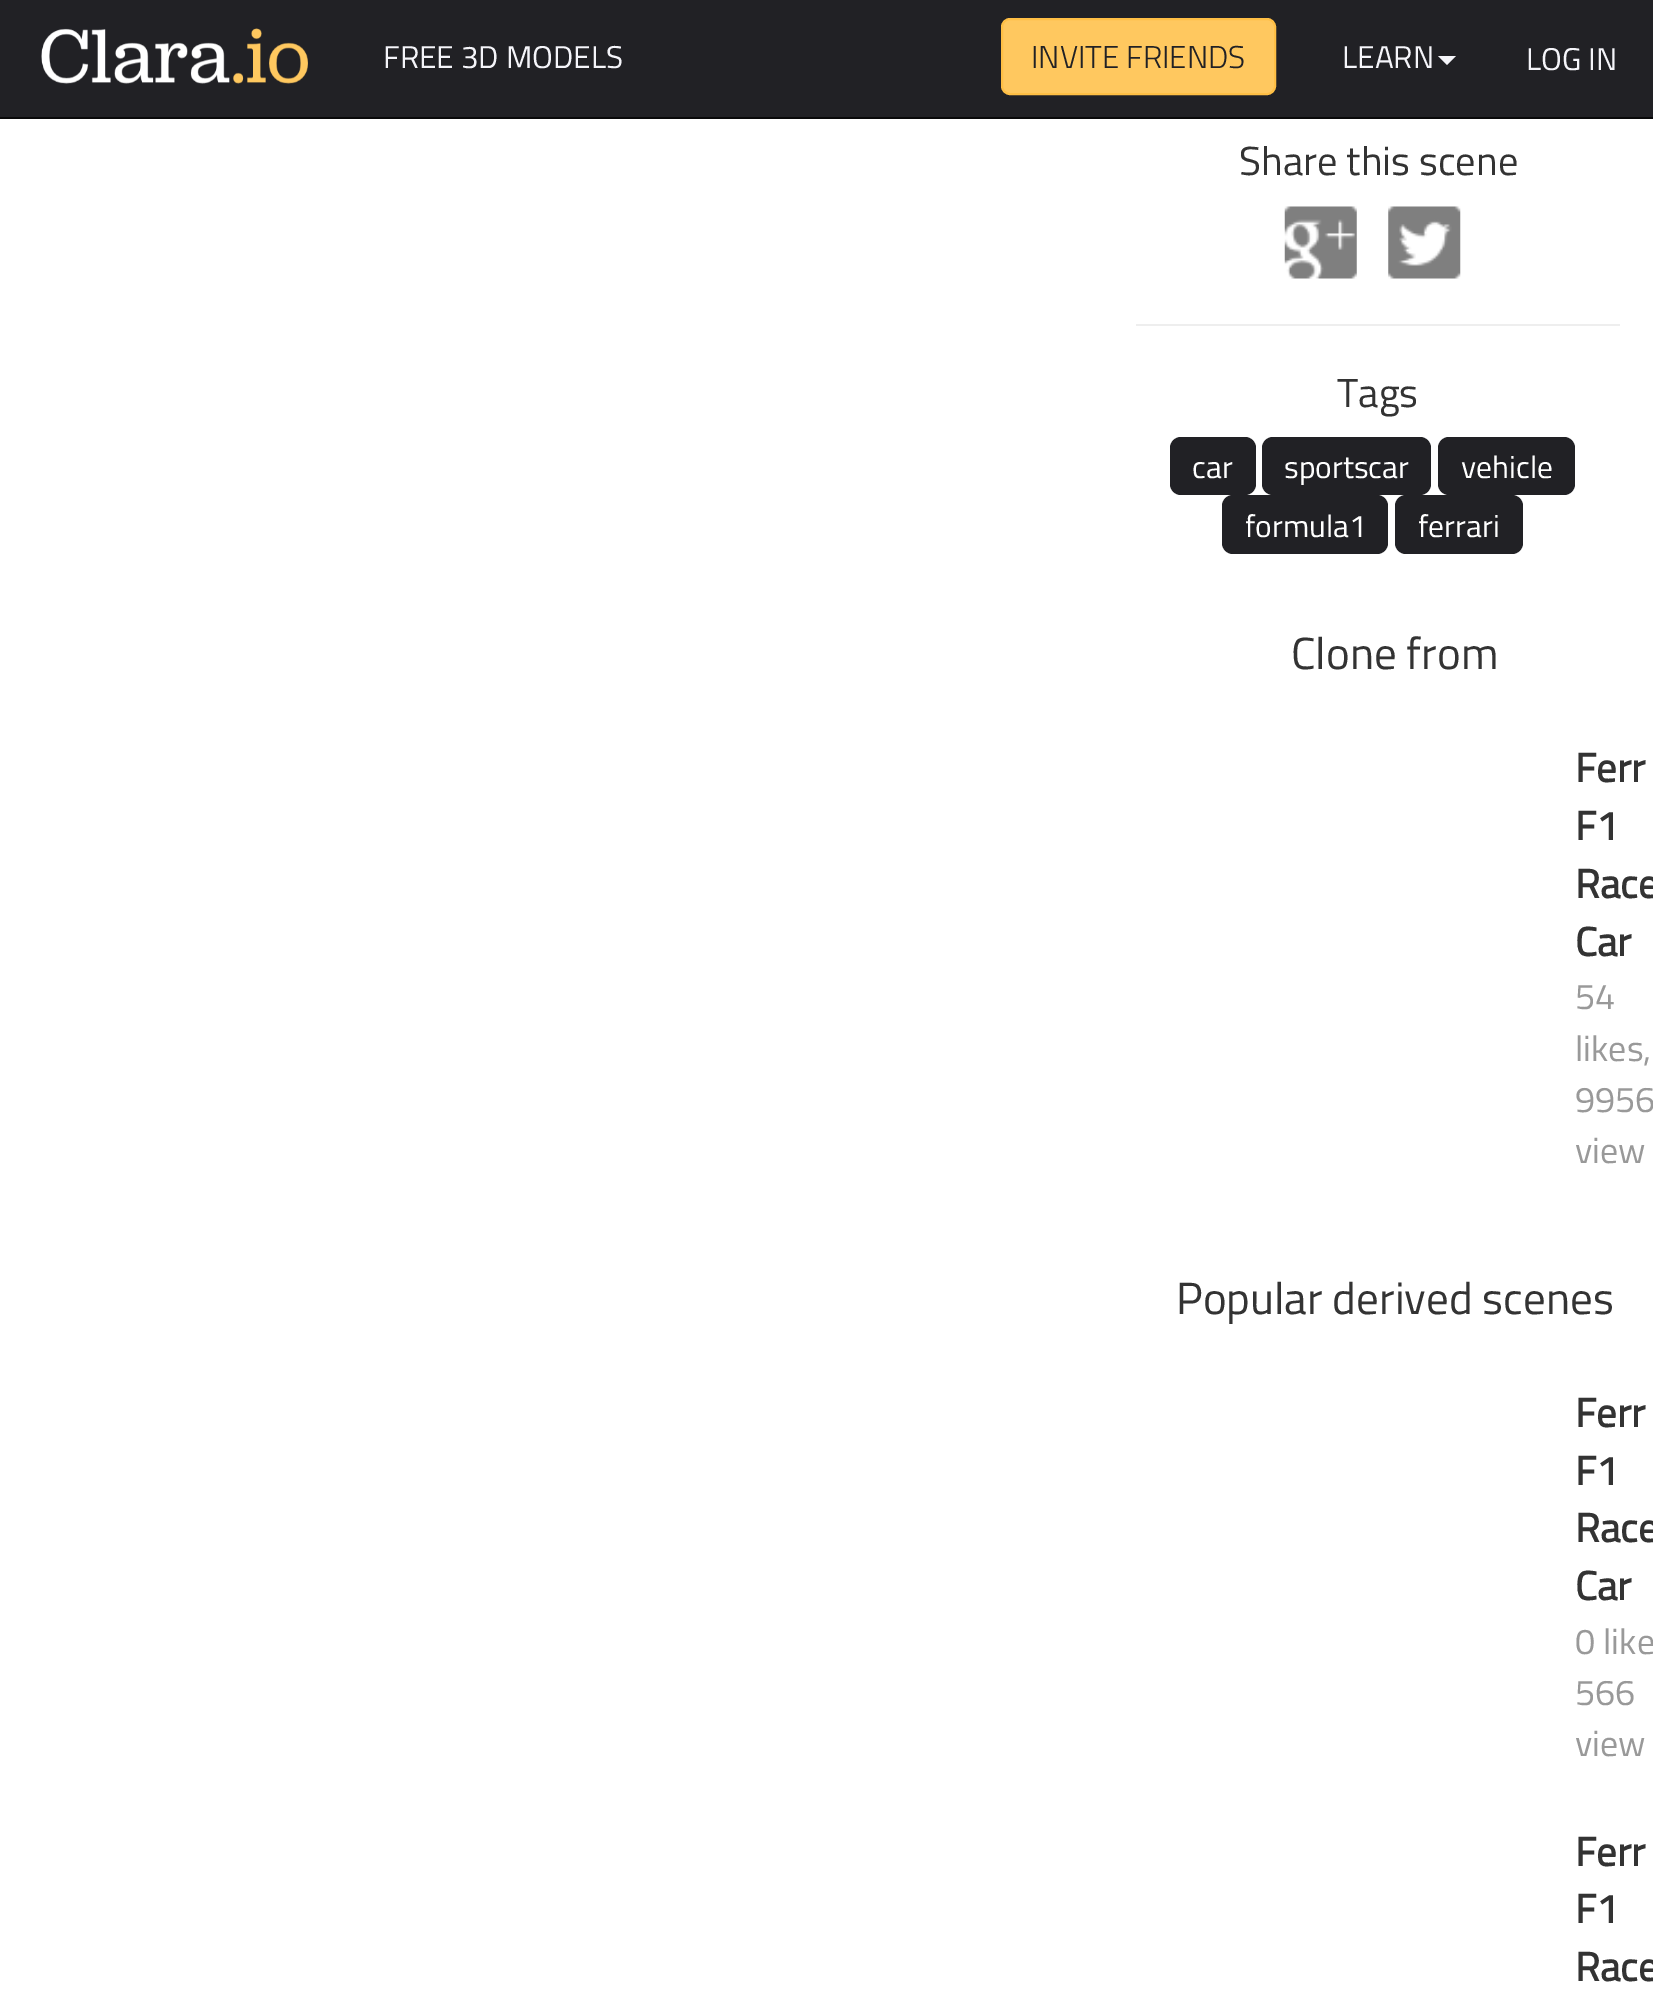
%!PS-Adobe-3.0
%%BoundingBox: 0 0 1653 1992
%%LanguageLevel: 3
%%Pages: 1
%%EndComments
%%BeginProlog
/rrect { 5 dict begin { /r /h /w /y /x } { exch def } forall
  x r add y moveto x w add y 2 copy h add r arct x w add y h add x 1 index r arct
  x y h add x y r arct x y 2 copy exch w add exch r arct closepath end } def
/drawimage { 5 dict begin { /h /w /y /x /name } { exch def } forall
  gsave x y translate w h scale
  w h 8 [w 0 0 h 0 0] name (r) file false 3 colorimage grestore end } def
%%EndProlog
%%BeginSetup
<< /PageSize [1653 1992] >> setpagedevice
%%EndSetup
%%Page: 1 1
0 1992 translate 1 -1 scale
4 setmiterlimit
1 setgray
0 0 1653 1992 rectfill
0.129 0.129 0.145 setrgbcolor
0 0 1653 117 rectfill
0.035 0.035 0.039 setrgbcolor
0 117 1653 2 rectfill
(images/1.raw) 41 28 267 56 drawimage
1 0.784 0.373 setrgbcolor
1002 19 273 75 8 rrect gsave fill grestore
1 0.749 0.271 setrgbcolor
2 setlinewidth
stroke
0.961 0.961 0.98 setrgbcolor
newpath 1438 56 moveto 1456 56 lineto 1447 65 lineto closepath fill
(images/2.raw) 1284 206 73 73 drawimage
(images/3.raw) 1388 206 73 73 drawimage
0.933 setgray
1136 324 484 2 rectfill
0.129 0.129 0.145 setrgbcolor
1170 437 86 58 11 rrect fill
1262 437 169 58 11 rrect fill
1438 437 137 58 11 rrect fill
1222 495 166 59 11 rrect fill
1395 495 128 59 11 rrect fill
/TitilliumWeb-Regular [31.5 0 0 -31.5 0 0] selectfont
0.961 0.961 0.98 setrgbcolor
383 68 moveto (FREE 3D MODELS) show
/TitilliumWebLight-Light [31.5 0 0 -31.5 0 0] selectfont
0.129 0.129 0.145 setrgbcolor
1031 68 moveto (INVITE FRIENDS) show
/TitilliumWeb-Regular [31.5 0 0 -31.5 0 0] selectfont
0.961 0.961 0.98 setrgbcolor
1342 68 moveto (LEARN) show
1526 70 moveto (LOG IN) show
/TitilliumWeb-Regular [40.5 0 0 -40.5 0 0] selectfont
0.2 setgray
1239 175 moveto (Share this scene) show
1337 407 moveto (Tags) show
/TitilliumWeb-Regular [31.5 0 0 -31.5 0 0] selectfont
1 setgray
1192 478 moveto (car) show
1284 478 moveto (sportscar) show
1461 478 moveto (vehicle) show
1245 537 moveto (formula1) show
1418 537 moveto (ferrari) show
/TitilliumWeb-Regular [45 0 0 -45 0 0] selectfont
0.2 setgray
1291 669 moveto (Clone from) show
/TitilliumWeb-Bold [40.5 0 0 -40.5 0 0] selectfont
1575 782 moveto (Ferr) show
1575 840 moveto (F1) show
1575 898 moveto (Race) show
1575 956 moveto (Car) show
/TitilliumWeb-Regular [36 0 0 -36 0 0] selectfont
0.6 setgray
1575 1009 moveto (54) show
1575 1061 moveto (likes,) show
1575 1112 moveto (9956) show
1575 1163 moveto (view) show
/TitilliumWeb-Regular [45 0 0 -45 0 0] selectfont
0.2 setgray
1176 1314 moveto (Popular derived scenes) show
/TitilliumWeb-Bold [40.5 0 0 -40.5 0 0] selectfont
1575 1427 moveto (Ferr) show
1575 1485 moveto (F1) show
1575 1542 moveto (Race) show
1575 1600 moveto (Car) show
/TitilliumWeb-Regular [36 0 0 -36 0 0] selectfont
0.6 setgray
1575 1654 moveto (0 like) show
1575 1705 moveto (566) show
1575 1756 moveto (view) show
/TitilliumWeb-Bold [40.5 0 0 -40.5 0 0] selectfont
0.2 setgray
1575 1866 moveto (Ferr) show
1575 1923 moveto (F1) show
1575 1981 moveto (Race) show
showpage
%%EOF
